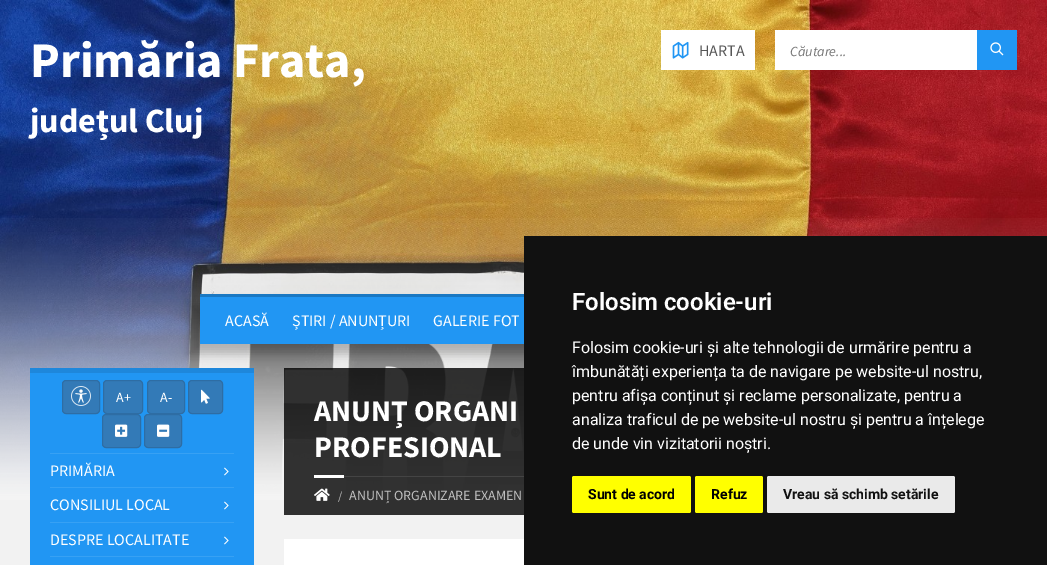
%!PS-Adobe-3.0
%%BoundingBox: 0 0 1047 565
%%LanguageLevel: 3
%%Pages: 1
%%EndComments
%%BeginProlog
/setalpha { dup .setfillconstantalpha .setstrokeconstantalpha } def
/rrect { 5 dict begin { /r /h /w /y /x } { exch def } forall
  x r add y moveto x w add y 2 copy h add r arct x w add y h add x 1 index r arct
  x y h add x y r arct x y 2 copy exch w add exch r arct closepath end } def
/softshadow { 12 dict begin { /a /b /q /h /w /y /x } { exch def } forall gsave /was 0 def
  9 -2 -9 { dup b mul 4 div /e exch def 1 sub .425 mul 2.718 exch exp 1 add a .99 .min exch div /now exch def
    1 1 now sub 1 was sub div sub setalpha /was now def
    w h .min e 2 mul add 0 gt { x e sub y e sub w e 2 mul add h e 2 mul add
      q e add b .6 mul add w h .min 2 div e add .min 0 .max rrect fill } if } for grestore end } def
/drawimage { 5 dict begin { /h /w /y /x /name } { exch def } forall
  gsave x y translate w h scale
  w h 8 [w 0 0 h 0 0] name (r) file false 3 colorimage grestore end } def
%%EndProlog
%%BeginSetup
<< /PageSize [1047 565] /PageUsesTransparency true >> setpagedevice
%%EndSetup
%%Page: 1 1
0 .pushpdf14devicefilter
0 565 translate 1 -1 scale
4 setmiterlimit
0.949 setgray
0 0 1047 565 rectfill
(images/1.raw) 0 0 1047 494 drawimage
(images/2.raw) 0 218 1047 282 drawimage
1 setgray
661 30 94 40 rectfill
(images/3.raw) 672 41 17 18 drawimage
775 30 202 40 rectfill
0.129 0.588 0.953 setrgbcolor
977 30 40 40 rectfill
(images/4.raw) 990 42 14 14 drawimage
0.118 0.529 0.859 setrgbcolor
30 368 224 5 rectfill
0.8 setalpha
0 setgray
284 368 240 147 rectfill
1 setalpha
190 304 817 50 0 5 0.25 softshadow
0.129 0.588 0.953 setrgbcolor
200 297 324 47 rectfill
0.102 0.471 0.761 setrgbcolor
200 294 324 3 rectfill
0.129 0.588 0.953 setrgbcolor
30 373 224 192 rectfill
0.2 0.478 0.718 setrgbcolor
62.5 380.5 37 33 3.5 rrect gsave fill grestore
0.18 0.427 0.643 setrgbcolor
stroke
(images/5.raw) 71 386 20 20 drawimage
0.2 0.478 0.718 setrgbcolor
103.5 380.5 39 33 3.5 rrect gsave fill grestore
0.18 0.427 0.643 setrgbcolor
stroke
0.2 0.478 0.718 setrgbcolor
147.5 380.5 37 33 3.5 rrect gsave fill grestore
0.18 0.427 0.643 setrgbcolor
stroke
0.2 0.478 0.718 setrgbcolor
188.5 380.5 34 33 3.5 rrect gsave fill grestore
0.18 0.427 0.643 setrgbcolor
stroke
(images/6.raw) 201 389 9 15 drawimage
0.2 0.478 0.718 setrgbcolor
102.5 414.5 38 33 3.5 rrect gsave fill grestore
0.18 0.427 0.643 setrgbcolor
stroke
(images/7.raw) 115 424 13 13 drawimage
0.2 0.478 0.718 setrgbcolor
144.5 414.5 37 33 3.5 rrect gsave fill grestore
0.18 0.427 0.643 setrgbcolor
stroke
(images/8.raw) 157 424 13 13 drawimage
0.216 0.631 0.957 setrgbcolor
50 453 184 1 rectfill
(images/9.raw) 224 467 5 9 drawimage
50 487 184 1 rectfill
(images/9.raw) 224 501 5 9 drawimage
50 522 184 1 rectfill
(images/9.raw) 224 536 5 9 drawimage
50 556 184 1 rectfill
0.267 setgray
344 476 180 1 rectfill
1 setgray
314 475 30 3 rectfill
(images/10.raw) 314 488 16 13 drawimage
284 539 240 26 rectfill
0.067 setgray
524 236 523 329 rectfill
1 1 0 setrgbcolor
572 476 119 37 2 rrect fill
695 476 68 37 2 rrect fill
0.918 setgray
767 476 188 37 2 rrect fill
/SourceSansPro-Bold [50 0 0 -50 0 0] selectfont
1 setgray
30 77 moveto (Primăria Frata,) show
/SourceSansPro-Bold [34 0 0 -34 0 0] selectfont
30 132 moveto (județul Cluj) show
/SourceSansPro-Regular [16 0 0 -16 0 0] selectfont
0.337 setgray
699 56 moveto (HARTA) show
/SourceSansPro-Italic [14 0 0 -14 0 0] selectfont
0.459 setgray
790 56 moveto (Căutare...) show
/SourceSansPro-Regular [16 0 0 -16 0 0] selectfont
1 setgray
225 326 moveto (ACASĂ) show
292 326 moveto (ȘTIRI / ANUNȚURI) show
433 326 moveto (GALERIE FOT) show
/SourceSansPro-Regular [14 0 0 -14 0 0] selectfont
116 402 moveto (A+) show
160 402 moveto (A-) show
/SourceSansPro-Regular [16 0 0 -16 0 0] selectfont
50 476 moveto (PRIMĂRIA) show
50 510 moveto (CONSILIUL LOCAL) show
50 545 moveto (DESPRE LOCALITATE) show
/SourceSansPro-Bold [30 0 0 -30 0 0] selectfont
314 421 moveto (ANUNȚ ORGANI) show
314 457 moveto (PROFESIONAL) show
/SourceSansPro-Regular [12 0 0 -12 0 0] selectfont
0.745 setgray
338 500 moveto (/) show
/SourceSansPro-Regular [14 0 0 -14 0 0] selectfont
349 500 moveto (ANUNȚ ORGANIZARE EXAMEN) show
/Roboto-SemiBold [24 0 0 -24 0 0] selectfont
1 setgray
572 310 moveto (Folosim cookie-uri) show
/Roboto-Regular [16 0 0 -16 0 0] selectfont
572 353 moveto (Folosim cookie-uri și alte tehnologii de urmărire pentru a) show
572 377 moveto (îmbunătăți experiența ta de navigare pe website-ul nostru,) show
572 401 moveto (pentru afișa conținut și reclame personalizate, pentru a) show
572 425 moveto (analiza traficul de pe website-ul nostru și pentru a înțelege) show
572 449 moveto (de unde vin vizitatorii noștri.) show
/Roboto-Bold [14 0 0 -14 0 0] selectfont
0 setgray
588 499 moveto (Sunt de acord) show
711 499 moveto (Refuz) show
0.067 setgray
783 499 moveto (Vreau să schimb setările) show
.poppdf14devicefilter showpage
%%EOF
